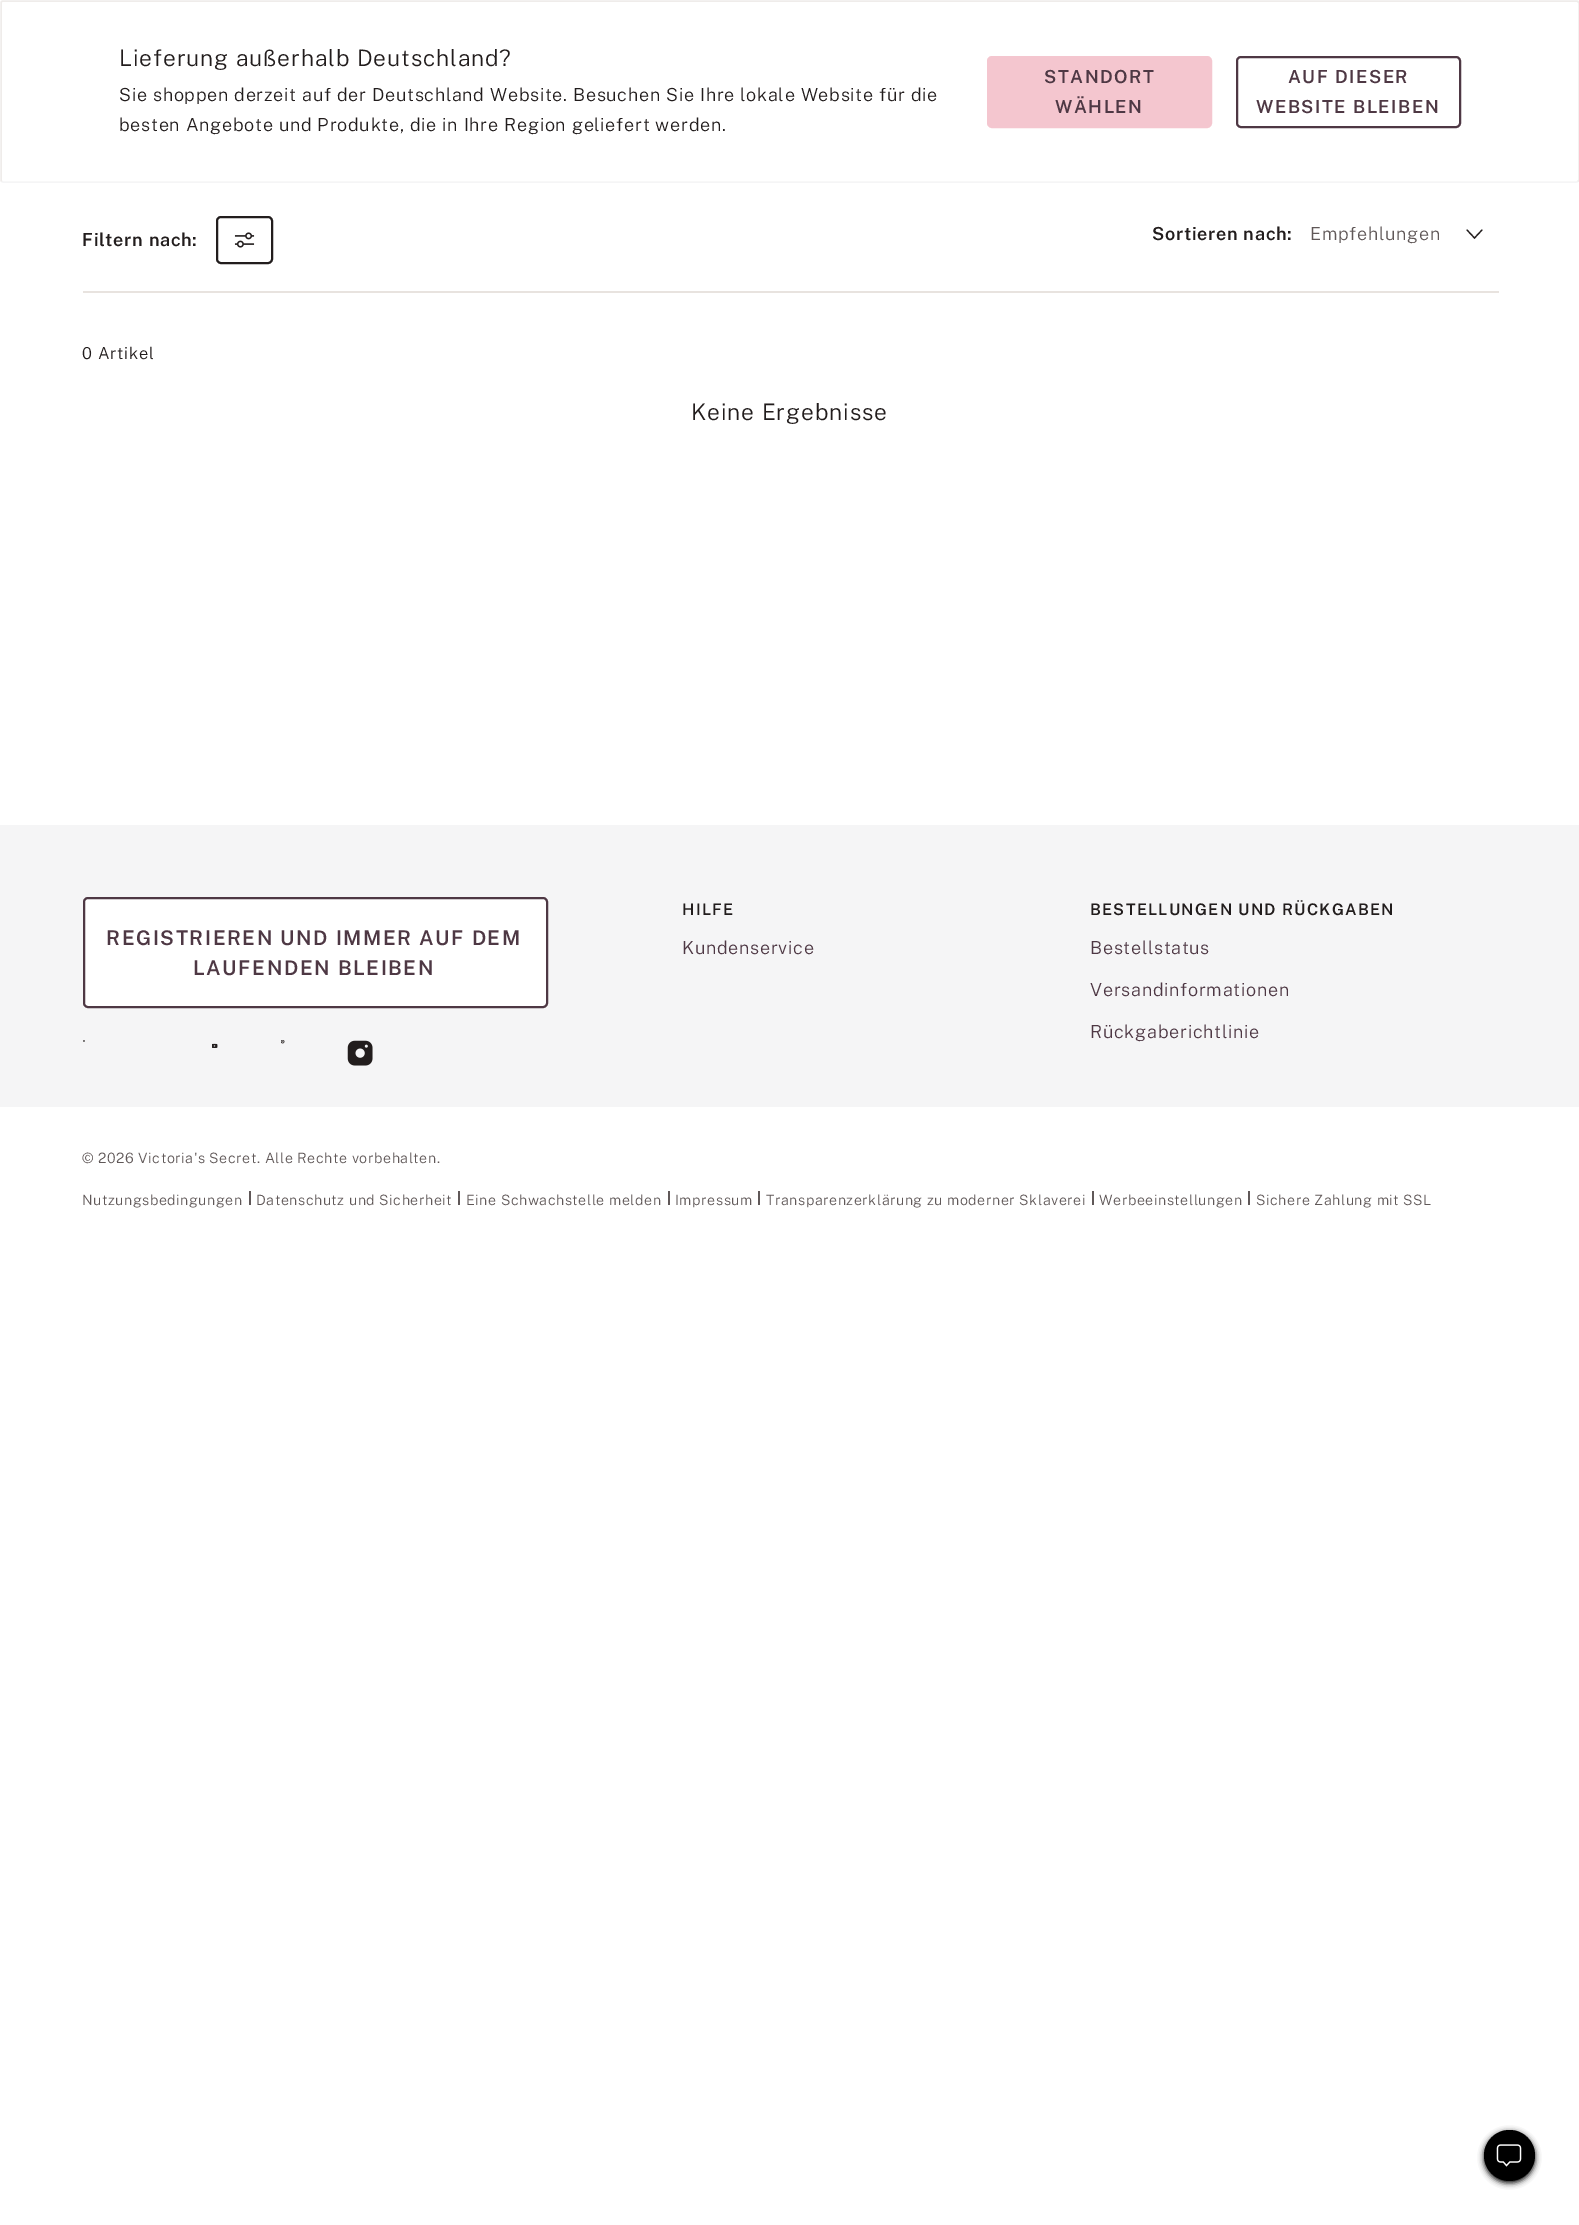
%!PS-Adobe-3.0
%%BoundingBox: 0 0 1579 2225
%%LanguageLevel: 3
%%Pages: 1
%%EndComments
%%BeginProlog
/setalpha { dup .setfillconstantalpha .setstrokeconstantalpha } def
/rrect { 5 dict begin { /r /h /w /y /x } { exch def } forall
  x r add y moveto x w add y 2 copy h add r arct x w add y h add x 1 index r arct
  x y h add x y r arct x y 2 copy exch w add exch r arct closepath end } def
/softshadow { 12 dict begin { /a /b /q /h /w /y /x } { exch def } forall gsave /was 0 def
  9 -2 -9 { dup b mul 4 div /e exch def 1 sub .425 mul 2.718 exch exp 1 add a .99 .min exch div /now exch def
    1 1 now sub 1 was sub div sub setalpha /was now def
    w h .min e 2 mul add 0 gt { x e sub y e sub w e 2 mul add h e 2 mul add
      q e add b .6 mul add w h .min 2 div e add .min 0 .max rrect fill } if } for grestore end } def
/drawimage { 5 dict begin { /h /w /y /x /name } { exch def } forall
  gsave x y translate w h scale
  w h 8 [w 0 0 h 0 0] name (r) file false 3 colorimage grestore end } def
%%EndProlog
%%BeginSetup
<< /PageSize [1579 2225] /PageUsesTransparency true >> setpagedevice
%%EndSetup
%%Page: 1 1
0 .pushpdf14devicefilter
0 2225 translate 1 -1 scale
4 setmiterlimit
1 setgray
0 0 1579 2225 rectfill
0.961 0.961 0.965 setrgbcolor
1.5 setlinewidth
newpath 1578 181.5 moveto 1576.5 182 lineto 3 182 lineto 1.5 181.5 lineto stroke
0.937 0.925 0.918 setrgbcolor
newpath 1.5 181.5 moveto 1 180 lineto 1 3 lineto 1.5 1.5 lineto 3 1 lineto 1576.5 1 lineto 1578 1.5 lineto 1579 3 lineto 1579 180 lineto 1578 181.5 lineto stroke
0.957 0.776 0.812 setrgbcolor
988 57 223 70 4 rrect gsave fill grestore
2 setlinewidth
stroke
0.306 0.22 0.267 setrgbcolor
1237 57 223 70 4 rrect stroke
0.91 0.89 0.875 setrgbcolor
83 291 1416 2 rectfill
0.133 0.114 0.114 setrgbcolor
217 217 55 46 4 rrect stroke
(images/1.raw) 234 232 21 16 drawimage
1.2 setlinewidth
1 setlinecap
newpath 1482 230 moveto 1474.5 238 lineto 1467 230 lineto stroke
0 setgray
1484 2132 51 51 25.5 3 1 softshadow
newpath 1509.5 2155.5 25.5 0 360 arc closepath fill
(images/2.raw) 1496 2144 26 23 drawimage
0.961 0.961 0.965 setrgbcolor
0 825 1579 282 rectfill
1 setgray
84 898 463 109 4 rrect gsave fill grestore
0.306 0.22 0.267 setrgbcolor
2 setlinewidth
0 setlinecap
stroke
(images/3.raw) 83 1040 2 2 drawimage
(images/4.raw) 212 1043 6 5 drawimage
(images/5.raw) 281 1040 4 4 drawimage
(images/6.raw) 347 1040 26 26 drawimage
0.376 0.345 0.345 setrgbcolor
249 1191 2 14 rectfill
458 1191 2 14 rectfill
668 1191 2 14 rectfill
758 1191 2 14 rectfill
1092 1191 2 14 rectfill
1248 1191 2 14 rectfill
/PublicSans-Light [22.75 0 0 -22.75 0 0] selectfont
0.133 0.114 0.114 setrgbcolor
119 66 moveto 0.9 0 (Lieferung außerhalb Deutschland?) ashow
/PublicSans-Light [18 0 0 -18 0 0] selectfont
119 101 moveto 0.72 0 (Sie shoppen derzeit auf der Deutschland Website. Besuchen Sie Ihre lokale Website für die) ashow
119 131 moveto 0.72 0 (besten Angebote und Produkte, die in Ihre Region geliefert werden.) ashow
/PublicSans-SemiBold [18 0 0 -18 0 0] selectfont
0.306 0.22 0.267 setrgbcolor
1044 83 moveto 1.5 0 (STANDORT) ashow
1055 113 moveto 1.5 0 (WÄHLEN) ashow
1288 83 moveto 1.5 0 (AUF DIESER) ashow
1256 113 moveto 1.5 0 (WEBSITE BLEIBEN) ashow
0.133 0.114 0.114 setrgbcolor
82 246 moveto 0.72 0 (Filtern nach:) ashow
1152 240 moveto 0.72 0 (Sortieren nach:) ashow
/PublicSans-Light [18 0 0 -18 0 0] selectfont
0.376 0.345 0.345 setrgbcolor
1310 240 moveto 0.72 0 (Empfehlungen) ashow
/PublicSans-Light [16.5 0 0 -16.5 0 0] selectfont
0.133 0.114 0.114 setrgbcolor
82 359 moveto 0.75 0 (0 Artikel) ashow
/PublicSans-Light [22.75 0 0 -22.75 0 0] selectfont
691 420 moveto 0.9 0 (Keine Ergebnisse) ashow
/PublicSans-SemiBold [20.25 0 0 -20.25 0 0] selectfont
0.306 0.22 0.267 setrgbcolor
106 945 moveto 1.6 0 (REGISTRIEREN UND IMMER AUF DEM) ashow
193 975 moveto 1.6 0 (LAUFENDEN BLEIBEN) ashow
/PublicSans-SemiBold [16 0 0 -16 0 0] selectfont
0.133 0.114 0.114 setrgbcolor
682 915 moveto 1.25 0 (HILFE) ashow
/PublicSans-Light [18 0 0 -18 0 0] selectfont
0.306 0.22 0.267 setrgbcolor
682 954 moveto 0.72 0 (Kundenservice) ashow
/PublicSans-SemiBold [16 0 0 -16 0 0] selectfont
0.133 0.114 0.114 setrgbcolor
1090 915 moveto 1.25 0 (BESTELLUNGEN UND RÜCKGABEN) ashow
/PublicSans-Light [18 0 0 -18 0 0] selectfont
0.306 0.22 0.267 setrgbcolor
1090 954 moveto 0.72 0 (Bestellstatus) ashow
1090 996 moveto 0.72 0 (Versandinformationen) ashow
1090 1038 moveto 0.72 0 (Rückgaberichtlinie) ashow
/PublicSans-Light [14.25 0 0 -14.25 0 0] selectfont
0.376 0.345 0.345 setrgbcolor
82 1163 moveto 0.55 0 (© 2026 Victoria's Secret. Alle Rechte vorbehalten.) ashow
82 1205 moveto 0.55 0 (Nutzungsbedingungen) ashow
256 1205 moveto 0.55 0 (Datenschutz und Sicherheit) ashow
466 1205 moveto 0.55 0 (Eine Schwachstelle melden) ashow
675 1205 moveto 0.55 0 (Impressum) ashow
766 1205 moveto 0.55 0 (Transparenzerklärung zu moderner Sklaverei) ashow
1099 1205 moveto 0.55 0 (Werbeeinstellungen) ashow
1256 1205 moveto 0.55 0 (Sichere Zahlung mit SSL) ashow
.poppdf14devicefilter showpage
%%EOF
